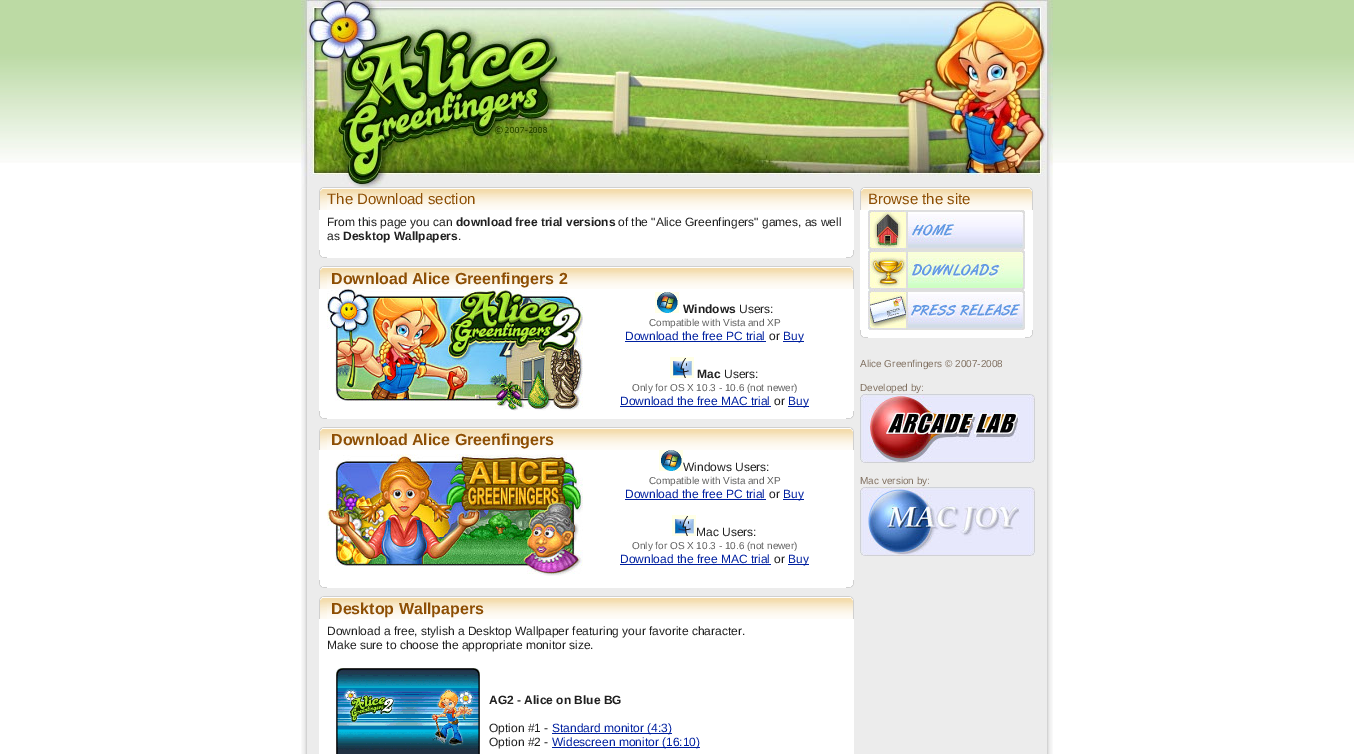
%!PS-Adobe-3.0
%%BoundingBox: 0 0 1354 754
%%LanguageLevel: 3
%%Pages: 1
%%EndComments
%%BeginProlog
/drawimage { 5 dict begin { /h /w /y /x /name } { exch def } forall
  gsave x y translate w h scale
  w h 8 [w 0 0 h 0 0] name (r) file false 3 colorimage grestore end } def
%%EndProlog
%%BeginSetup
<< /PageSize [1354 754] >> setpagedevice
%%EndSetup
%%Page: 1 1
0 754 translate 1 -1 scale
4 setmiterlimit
1 setgray
0 0 1354 754 rectfill
(images/1.raw) 0 0 1354 163 drawimage
(images/2.raw) 301 0 752 187 drawimage
(images/3.raw) 301 187 752 567 drawimage
(images/4.raw) 319 187 8 23 drawimage
(images/5.raw) 327 187 519 23 drawimage
(images/6.raw) 846 187 8 23 drawimage
319 210 535 40 rectfill
(images/7.raw) 319 250 8 8 drawimage
327 250 519 8 rectfill
(images/8.raw) 846 250 8 8 drawimage
(images/4.raw) 319 266 8 23 drawimage
(images/5.raw) 327 266 519 23 drawimage
(images/6.raw) 846 266 8 23 drawimage
319 289 8 122 rectfill
583 289 271 122 rectfill
(images/9.raw) 327 289 256 122 drawimage
(images/10.raw) 655 292 24 21 drawimage
0 0.125 0.627 setrgbcolor
625 341 141 1 rectfill
783 341 21 1 rectfill
(images/11.raw) 670 357 24 21 drawimage
620 406 151 1 rectfill
788 406 21 1 rectfill
(images/7.raw) 319 411 8 8 drawimage
1 setgray
327 411 519 8 rectfill
(images/8.raw) 846 411 8 8 drawimage
(images/4.raw) 319 427 8 23 drawimage
(images/5.raw) 327 427 519 23 drawimage
(images/6.raw) 846 427 8 23 drawimage
319 450 535 130 rectfill
(images/12.raw) 327 454 256 122 drawimage
(images/10.raw) 659 450 24 21 drawimage
0 0.125 0.627 setrgbcolor
625 499 141 1 rectfill
783 499 21 1 rectfill
(images/11.raw) 672 515 24 21 drawimage
620 564 151 1 rectfill
788 564 21 1 rectfill
(images/7.raw) 319 580 8 8 drawimage
1 setgray
327 580 519 8 rectfill
(images/8.raw) 846 580 8 8 drawimage
(images/4.raw) 319 596 8 23 drawimage
(images/5.raw) 327 596 519 23 drawimage
(images/6.raw) 846 596 8 23 drawimage
319 619 535 135 rectfill
(images/13.raw) 336 668 144 86 drawimage
0 0.125 0.627 setrgbcolor
552 733 120 1 rectfill
552 747 148 1 rectfill
(images/4.raw) 860 187 8 23 drawimage
(images/14.raw) 868 187 157 23 drawimage
(images/6.raw) 1025 187 8 23 drawimage
1 setgray
860 210 8 120 rectfill
(images/15.raw) 868 210 157 40 drawimage
(images/16.raw) 868 250 157 40 drawimage
(images/17.raw) 868 290 157 40 drawimage
1025 210 8 120 rectfill
(images/7.raw) 860 330 8 8 drawimage
868 330 157 8 rectfill
(images/8.raw) 1025 330 8 8 drawimage
(images/18.raw) 860 394 175 69 drawimage
(images/19.raw) 860 487 175 69 drawimage
/LiberationSans-Regular [15 0 0 -15 0 0] selectfont
0.553 0.306 0.012 setrgbcolor
327 204 moveto (The Download section) show
/LiberationSans-Regular [12 0 0 -12 0 0] selectfont
0.125 setgray
327 226 moveto (From this page you can) show
/LiberationSans-Bold [12 0 0 -12 0 0] selectfont
456 226 moveto (download free trial versions) show
/LiberationSans-Regular [12 0 0 -12 0 0] selectfont
618 226 moveto (of the "Alice Greenfingers" games, as well) show
327 240 moveto (as) show
/LiberationSans-Bold [12 0 0 -12 0 0] selectfont
343 240 moveto (Desktop Wallpapers) show
/LiberationSans-Regular [12 0 0 -12 0 0] selectfont
458 240 moveto (.) show
/LiberationSans-Bold [16 0 0 -16 0 0] selectfont
0.553 0.306 0.012 setrgbcolor
331 284 moveto (Download Alice Greenfingers 2) show
/LiberationSans-Bold [12 0 0 -12 0 0] selectfont
0.125 setgray
683 313 moveto (Windows) show
/LiberationSans-Regular [12 0 0 -12 0 0] selectfont
739 313 moveto (Users:) show
/LiberationSans-Regular [10 0 0 -10 0 0] selectfont
0.369 setgray
649 326 moveto (Compatible with Vista and XP) show
/LiberationSans-Regular [12 0 0 -12 0 0] selectfont
0 0.125 0.627 setrgbcolor
625 340 moveto (Download the free PC trial) show
0.125 setgray
769 340 moveto (or) show
0 0.125 0.627 setrgbcolor
783 340 moveto (Buy) show
/LiberationSans-Bold [12 0 0 -12 0 0] selectfont
0.125 setgray
697 378 moveto (Mac) show
/LiberationSans-Regular [12 0 0 -12 0 0] selectfont
724 378 moveto (Users:) show
/LiberationSans-Regular [10 0 0 -10 0 0] selectfont
0.369 setgray
632 391 moveto (Only for OS X 10.3 - 10.6 \(not newer\)) show
/LiberationSans-Regular [12 0 0 -12 0 0] selectfont
0 0.125 0.627 setrgbcolor
620 405 moveto (Download the free MAC trial) show
0.125 setgray
774 405 moveto (or) show
0 0.125 0.627 setrgbcolor
788 405 moveto (Buy) show
/LiberationSans-Bold [16 0 0 -16 0 0] selectfont
0.553 0.306 0.012 setrgbcolor
331 445 moveto (Download Alice Greenfingers) show
/LiberationSans-Regular [12 0 0 -12 0 0] selectfont
0.125 setgray
683 471 moveto (Windows Users:) show
/LiberationSans-Regular [10 0 0 -10 0 0] selectfont
0.369 setgray
649 484 moveto (Compatible with Vista and XP) show
/LiberationSans-Regular [12 0 0 -12 0 0] selectfont
0 0.125 0.627 setrgbcolor
625 498 moveto (Download the free PC trial) show
0.125 setgray
769 498 moveto (or) show
0 0.125 0.627 setrgbcolor
783 498 moveto (Buy) show
0.125 setgray
696 536 moveto (Mac Users:) show
/LiberationSans-Regular [10 0 0 -10 0 0] selectfont
0.369 setgray
632 549 moveto (Only for OS X 10.3 - 10.6 \(not newer\)) show
/LiberationSans-Regular [12 0 0 -12 0 0] selectfont
0 0.125 0.627 setrgbcolor
620 563 moveto (Download the free MAC trial) show
0.125 setgray
774 563 moveto (or) show
0 0.125 0.627 setrgbcolor
788 563 moveto (Buy) show
/LiberationSans-Bold [16 0 0 -16 0 0] selectfont
0.553 0.306 0.012 setrgbcolor
331 614 moveto (Desktop Wallpapers) show
/LiberationSans-Regular [12 0 0 -12 0 0] selectfont
0.125 setgray
327 635 moveto (Download a free, stylish a Desktop Wallpaper featuring your favorite character.) show
327 649 moveto (Make sure to choose the appropriate monitor size.) show
/LiberationSans-Bold [12 0 0 -12 0 0] selectfont
489 704 moveto (AG2 - Alice on Blue BG) show
/LiberationSans-Regular [12 0 0 -12 0 0] selectfont
489 732 moveto (Option #1 -) show
0 0.125 0.627 setrgbcolor
552 732 moveto (Standard monitor \(4:3\)) show
0.125 setgray
489 746 moveto (Option #2 -) show
0 0.125 0.627 setrgbcolor
552 746 moveto (Widescreen monitor \(16:10\)) show
/LiberationSans-Regular [15 0 0 -15 0 0] selectfont
0.553 0.306 0.012 setrgbcolor
868 204 moveto (Browse the site) show
/LiberationSans-Regular [10 0 0 -10 0 0] selectfont
0.502 0.439 0.376 setrgbcolor
860 367 moveto (Alice Greenfingers © 2007-2008) show
860 391 moveto (Developed by:) show
860 484 moveto (Mac version by:) show
showpage
%%EOF
